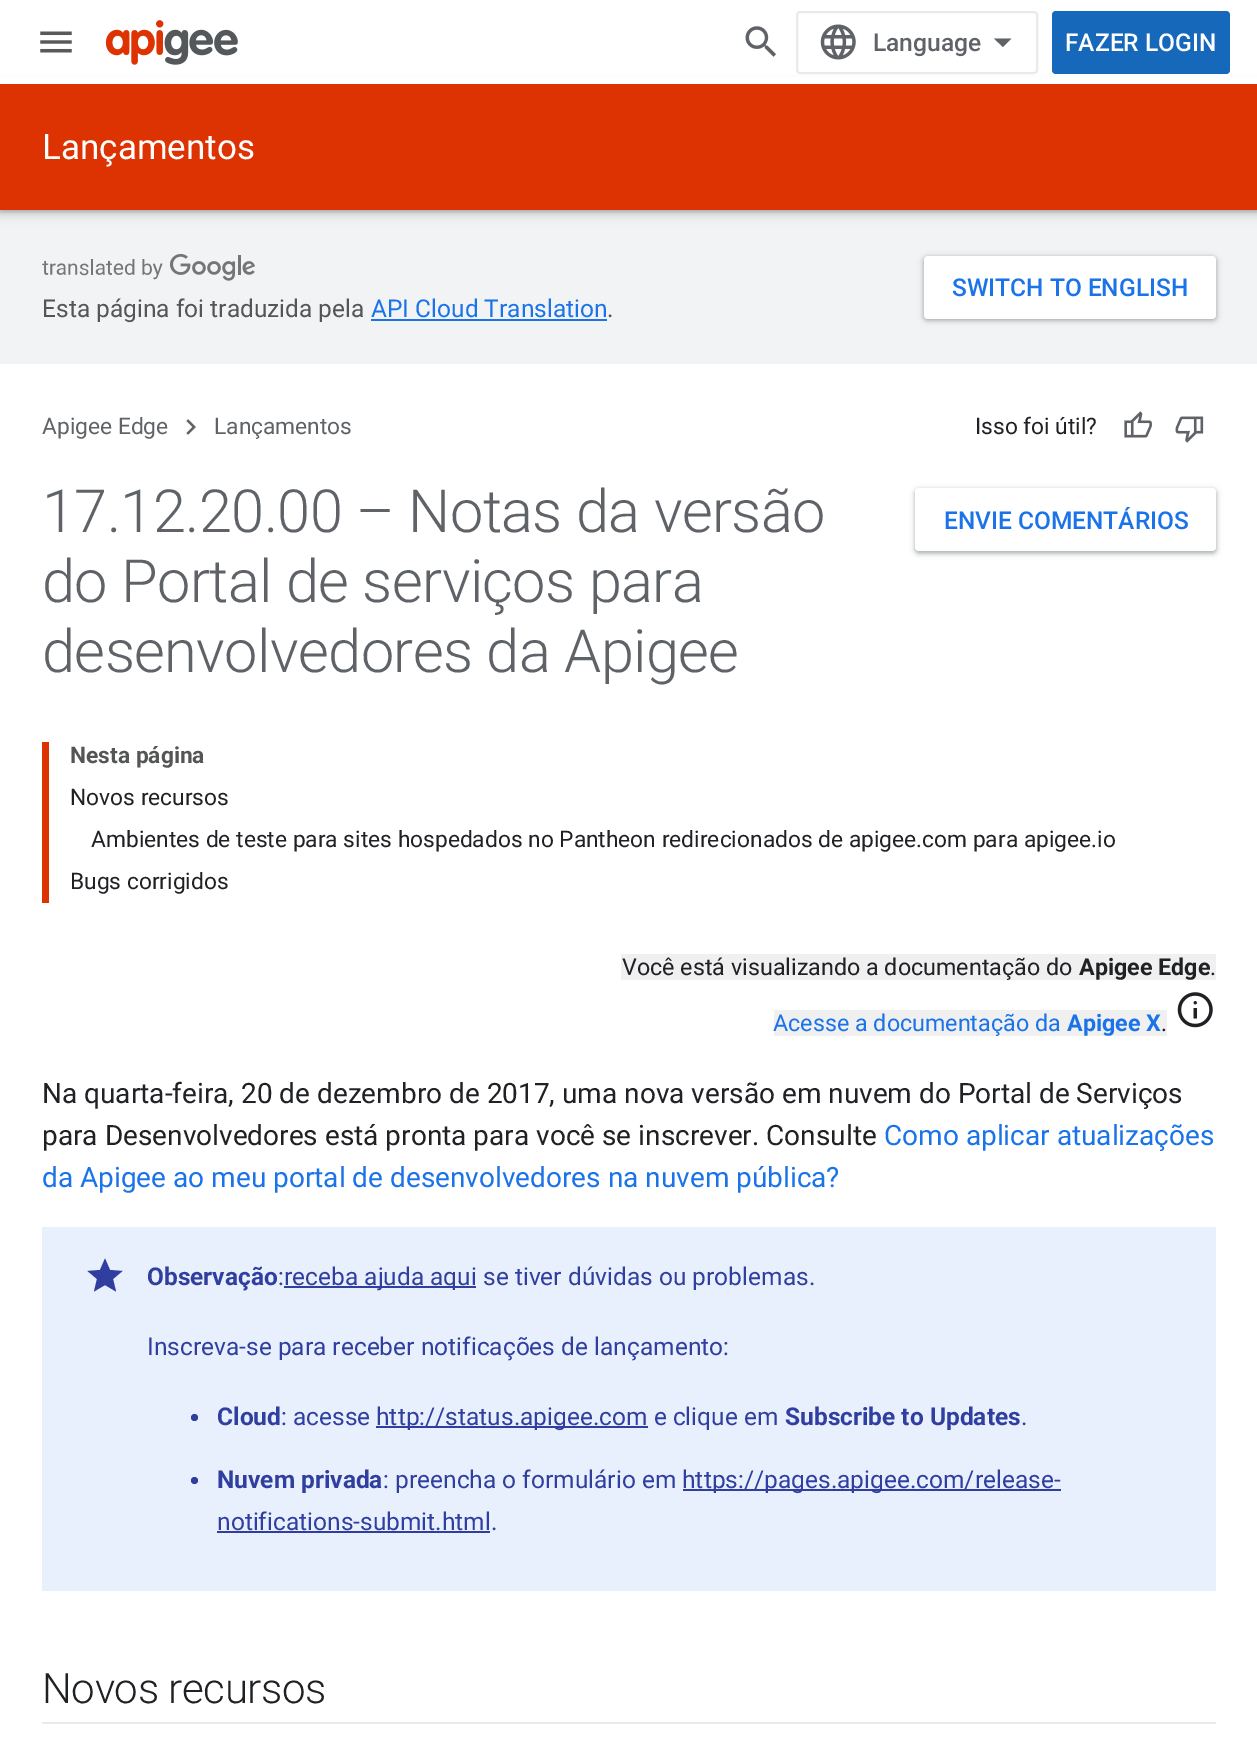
%!PS-Adobe-3.0
%%BoundingBox: 0 0 1257 1763
%%LanguageLevel: 3
%%Pages: 1
%%EndComments
%%BeginProlog
/setalpha { dup .setfillconstantalpha .setstrokeconstantalpha } def
/rrect { 5 dict begin { /r /h /w /y /x } { exch def } forall
  x r add y moveto x w add y 2 copy h add r arct x w add y h add x 1 index r arct
  x y h add x y r arct x y 2 copy exch w add exch r arct closepath end } def
/softshadow { 12 dict begin { /a /b /q /h /w /y /x } { exch def } forall gsave /was 0 def
  9 -2 -9 { dup b mul 4 div /e exch def 1 sub .425 mul 2.718 exch exp 1 add a .99 .min exch div /now exch def
    1 1 now sub 1 was sub div sub setalpha /was now def
    w h .min e 2 mul add 0 gt { x e sub y e sub w e 2 mul add h e 2 mul add
      q e add b .6 mul add w h .min 2 div e add .min 0 .max rrect fill } if } for grestore end } def
/drawimage { 5 dict begin { /h /w /y /x /name } { exch def } forall
  gsave x y translate w h scale
  w h 8 [w 0 0 h 0 0] name (r) file false 3 colorimage grestore end } def
%%EndProlog
%%BeginSetup
<< /PageSize [1257 1763] /PageUsesTransparency true >> setpagedevice
%%EndSetup
%%Page: 1 1
0 .pushpdf14devicefilter
0 1763 translate 1 -1 scale
4 setmiterlimit
1 setgray
0 0 1257 1763 rectfill
0.945 0.953 0.957 setrgbcolor
0 210 1257 154 rectfill
0.235 0.251 0.263 setrgbcolor
-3 84 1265 133 0 5 0.15 softshadow
0 86 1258 126 0 2 0.3 softshadow
1 setgray
0 77 1257 7 rectfill
(images/1.raw) 40 31 32 22 drawimage
(images/2.raw) 105 20 133 45 drawimage
(images/3.raw) 745 26 31 31 drawimage
0.91 0.918 0.929 setrgbcolor
2 setlinewidth
797 12 240 61 3 rrect stroke
(images/4.raw) 820 24 36 36 drawimage
0.373 0.388 0.408 setrgbcolor
newpath 1003 47 moveto 994 38.5 lineto 1011.5 38.5 lineto closepath fill
0.082 0.408 0.729 setrgbcolor
1052 11 178 63 4 rrect fill
0.867 0.2 0.012 setrgbcolor
0 84 1257 126 rectfill
0.235 0.251 0.263 setrgbcolor
922 256 296 66 5 2.5 0.15 softshadow
924 257 292 63 4 2 0.3 softshadow
1 setgray
924 256 292 63 4 rrect fill
(images/5.raw) 42 254 213 27 drawimage
0.102 0.451 0.91 setrgbcolor
371 319 236 2 rectfill
(images/6.raw) 186 419 10 16 drawimage
(images/7.raw) 1124 411 28 27 drawimage
(images/8.raw) 1175 416 29 27 drawimage
0.235 0.251 0.263 setrgbcolor
914 488 304 67 5 2.5 0.15 softshadow
915 490 301 63 4 2 0.3 softshadow
1 setgray
915 488 301 63 4 rrect fill
0.867 0.2 0.012 setrgbcolor
42 742 7 161 rectfill
0.941 setgray
621 954 595 26 rectfill
774 1010 393 26 rectfill
(images/9.raw) 1177 992 36 36 drawimage
0.91 0.941 0.996 setrgbcolor
42 1227 1174 364 rectfill
0.188 0.247 0.624 setrgbcolor
newpath 105 1285 moveto 94 1291.5 lineto 97 1279 lineto 87.5 1271 lineto 100 1270 lineto 105 1258.5 lineto 110 1270 lineto 122.5 1271 lineto 113 1279 lineto 116 1291.5 lineto closepath fill
284 1286 192 2 rectfill
newpath 194.5 1417.5 3.5 0 360 arc closepath fill
376 1426 272 2 rectfill
newpath 194.5 1480.5 3.5 0 360 arc closepath fill
683 1489 378 2 rectfill
217 1531 273 2 rectfill
0.91 0.918 0.929 setrgbcolor
42 1722 1174 2 rectfill
/Roboto-Medium [24.5 0 0 -24.5 0 0] selectfont
0.373 0.388 0.408 setrgbcolor
873 51 moveto (Language) show
1 setgray
1065 51 moveto (FAZER LOGIN) show
/Roboto-Regular [35 0 0 -35 0 0] selectfont
42 159 moveto (Lançamentos) show
/Roboto-Medium [24.5 0 0 -24.5 0 0] selectfont
0.102 0.451 0.91 setrgbcolor
952 296 moveto (SWITCH TO ENGLISH) show
/Roboto-Regular [24.5 0 0 -24.5 0 0] selectfont
0.329 0.333 0.333 setrgbcolor
42 317 moveto (Esta página foi traduzida pela) show
0.102 0.451 0.91 setrgbcolor
371 317 moveto (API Cloud Translation) show
0.329 0.333 0.333 setrgbcolor
607 317 moveto (.) show
/Roboto-Regular [22.75 0 0 -22.75 0 0] selectfont
0.373 0.388 0.408 setrgbcolor
42 434 moveto (Apigee Edge) show
214 434 moveto (Lançamentos) show
0.125 0.129 0.141 setrgbcolor
975 434 moveto (Isso foi útil?) show
/Roboto-Light [59.5 0 0 -59.5 0 0] selectfont
0.373 0.388 0.408 setrgbcolor
42 532 moveto -0.6 0 (17.12.20.00 – Notas da versão) ashow
/Roboto-Medium [24.5 0 0 -24.5 0 0] selectfont
0.102 0.451 0.91 setrgbcolor
944 529 moveto (ENVIE COMENTÁRIOS) show
/Roboto-Light [59.5 0 0 -59.5 0 0] selectfont
0.373 0.388 0.408 setrgbcolor
42 602 moveto -0.6 0 (do Portal de serviços para) ashow
42 672 moveto -0.6 0 (desenvolvedores da Apigee) ashow
/Roboto-Bold [22.75 0 0 -22.75 0 0] selectfont
0.329 0.333 0.333 setrgbcolor
70 763 moveto (Nesta página) show
/Roboto-Regular [22.75 0 0 -22.75 0 0] selectfont
0.125 0.129 0.141 setrgbcolor
70 805 moveto (Novos recursos) show
91 847 moveto (Ambientes de teste para sites hospedados no Pantheon redirecionados de apigee.com para apigee.io) show
70 889 moveto (Bugs corrigidos) show
/Roboto-Regular [23.3 0 0 -23.3 0 0] selectfont
622 975 moveto (Você está visualizando a documentação do) show
/Roboto-Bold [23.3 0 0 -23.3 0 0] selectfont
1079 975 moveto (Apigee Edge) show
/Roboto-Regular [23.3 0 0 -23.3 0 0] selectfont
1210 975 moveto (.) show
0.102 0.451 0.91 setrgbcolor
773 1031 moveto (Acesse a documentação da) show
/Roboto-Bold [23.3 0 0 -23.3 0 0] selectfont
1067 1031 moveto (Apigee X) show
/Roboto-Regular [23.3 0 0 -23.3 0 0] selectfont
0.125 0.129 0.141 setrgbcolor
1161 1031 moveto (.) show
/Roboto-Regular [28 0 0 -28 0 0] selectfont
42 1103 moveto (Na quarta-feira, 20 de dezembro de 2017, uma nova versão em nuvem do Portal de Serviços) show
42 1145 moveto (para Desenvolvedores está pronta para você se inscrever. Consulte) show
0.102 0.451 0.91 setrgbcolor
884 1145 moveto (Como aplicar atualizações) show
42 1187 moveto (da Apigee ao meu portal de desenvolvedores na nuvem pública?) show
/Roboto-Bold [24.5 0 0 -24.5 0 0] selectfont
0.188 0.247 0.624 setrgbcolor
147 1285 moveto (Observação) show
/Roboto-Regular [24.5 0 0 -24.5 0 0] selectfont
278 1285 moveto (:) show
284 1285 moveto (receba ajuda aqui se tiver dúvidas ou problemas.) show
147 1355 moveto (Inscreva-se para receber notificações de lançamento:) show
/Roboto-Bold [24.5 0 0 -24.5 0 0] selectfont
217 1425 moveto (Cloud) show
/Roboto-Regular [24.5 0 0 -24.5 0 0] selectfont
281 1425 moveto (: acesse) show
376 1425 moveto (http://status.apigee.com e clique em) show
/Roboto-Bold [24.5 0 0 -24.5 0 0] selectfont
785 1425 moveto (Subscribe to Updates) show
/Roboto-Regular [24.5 0 0 -24.5 0 0] selectfont
1021 1425 moveto (.) show
/Roboto-Bold [24.5 0 0 -24.5 0 0] selectfont
217 1488 moveto (Nuvem privada) show
/Roboto-Regular [24.5 0 0 -24.5 0 0] selectfont
383 1488 moveto (: preencha o formulário em) show
682 1488 moveto (https://pages.apigee.com/release-) show
217 1530 moveto (notifications-submit.html.) show
/Roboto-Light [42 0 0 -42 0 0] selectfont
0.125 0.129 0.141 setrgbcolor
42 1703 moveto -0.4 0 (Novos recursos) ashow
.poppdf14devicefilter showpage
%%EOF
